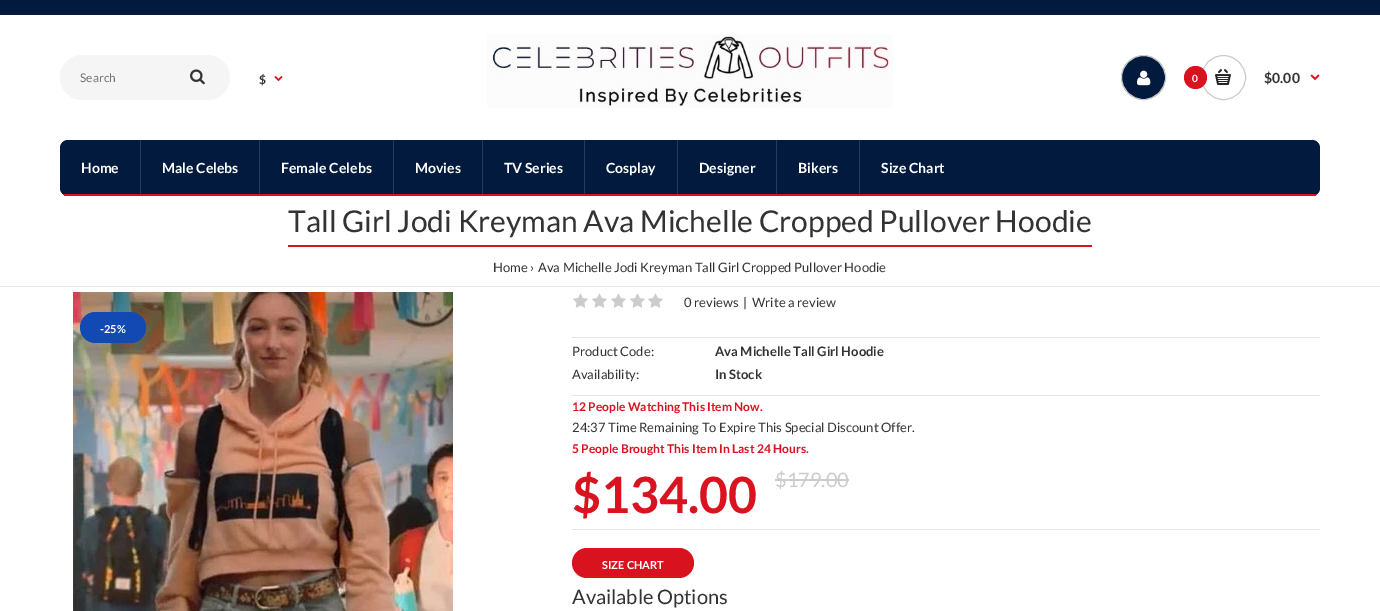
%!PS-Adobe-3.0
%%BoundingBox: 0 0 1380 611
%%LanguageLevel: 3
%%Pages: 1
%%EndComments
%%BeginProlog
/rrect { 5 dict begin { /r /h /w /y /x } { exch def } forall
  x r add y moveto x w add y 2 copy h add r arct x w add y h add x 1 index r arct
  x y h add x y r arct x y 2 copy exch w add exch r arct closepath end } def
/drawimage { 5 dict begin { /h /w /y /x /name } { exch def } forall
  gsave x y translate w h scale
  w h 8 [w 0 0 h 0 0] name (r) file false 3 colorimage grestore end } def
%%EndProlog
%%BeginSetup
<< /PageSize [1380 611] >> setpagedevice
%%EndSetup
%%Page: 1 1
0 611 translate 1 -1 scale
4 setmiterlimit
1 setgray
0 0 1380 611 rectfill
0.008 0.102 0.239 setrgbcolor
0 0 1380 15 rectfill
0.961 setgray
60 55 170 45 22.5 rrect fill
(images/1.raw) 190 69 15 16 drawimage
(images/2.raw) 274 76 9 6 drawimage
(images/3.raw) 487 34 406 74 drawimage
0.008 0.102 0.239 setrgbcolor
newpath 1143.5 77.5 22 0 360 arc closepath gsave fill grestore
0.8 setgray
stroke
(images/4.raw) 1137 70 14 16 drawimage
newpath 1223.5 77.5 22 0 360 arc closepath stroke
0.851 0.071 0.122 setrgbcolor
newpath 1195.5 77.5 11.5 0 360 arc closepath fill
(images/5.raw) 1215 69 16 16 drawimage
(images/6.raw) 1310 74 10 7 drawimage
0.008 0.102 0.239 setrgbcolor
60 140 1260 56 8 rrect fill
0.851 0.071 0.122 setrgbcolor
64 194 1252 2 rectfill
0.157 0.235 0.353 setrgbcolor
140 140 1 54 rectfill
259 140 1 54 rectfill
393 140 1 54 rectfill
482 140 1 54 rectfill
584 140 1 54 rectfill
677 140 1 54 rectfill
776 140 1 54 rectfill
859 140 1 54 rectfill
0.902 setgray
0 286 1380 1 rectfill
0.851 0.071 0.122 setrgbcolor
288 245 804 2 rectfill
(images/7.raw) 73 292 380 319 drawimage
0.075 0.286 0.698 setrgbcolor
80 312 66 31 15.5 rrect fill
0.898 setgray
572 337 748 1 rectfill
(images/8.raw) 573 293 15 15 drawimage
(images/8.raw) 592 293 15 15 drawimage
(images/8.raw) 611 293 15 15 drawimage
(images/8.raw) 630 293 15 15 drawimage
(images/8.raw) 648 293 15 15 drawimage
0.902 setgray
572 395 748 1 rectfill
0.8 setgray
775 479 74 2 rectfill
0.902 setgray
572 529 748 1 rectfill
0.851 0.071 0.122 setrgbcolor
572 548 122 30 15 rrect fill
/Lato-Regular [12 0 0 -12 0 0] selectfont
0.459 setgray
80 82 moveto (Search) show
/Lato-Bold [12 0 0 -12 0 0] selectfont
0.2 setgray
259 84 moveto ($) show
/Lato-Bold [10 0 0 -10 0 0] selectfont
1 setgray
1192 82 moveto (0) show
/Lato-Bold [14 0 0 -14 0 0] selectfont
0.2 setgray
1264 83 moveto ($0.00) show
1 setgray
81 173 moveto (Home) show
162 173 moveto (Male Celebs) show
281 173 moveto (Female Celebs) show
415 173 moveto (Movies) show
504 173 moveto (TV Series) show
606 173 moveto (Cosplay) show
699 173 moveto (Designer) show
798 173 moveto (Bikers) show
881 173 moveto (Size Chart) show
/Lato-Regular [30 0 0 -30 0 0] selectfont
0.2 setgray
288 232 moveto (Tall Girl Jodi Kreyman Ava Michelle Cropped Pullover Hoodie) show
/Lato-Regular [13 0 0 -13 0 0] selectfont
493 272 moveto (Home ›) show
538 272 moveto (Ava Michelle Jodi Kreyman Tall Girl Cropped Pullover Hoodie) show
/Lato-Bold [11 0 0 -11 0 0] selectfont
1 setgray
100 333 moveto (-25%) show
/Lato-Regular [13 0 0 -13 0 0] selectfont
0.2 setgray
684 307 moveto (0 reviews) show
743 307 moveto (|) show
752 307 moveto (Write a review) show
572 356 moveto (Product Code:) show
/Lato-Bold [13 0 0 -13 0 0] selectfont
715 356 moveto (Ava Michelle Tall Girl Hoodie) show
/Lato-Regular [13 0 0 -13 0 0] selectfont
572 379 moveto (Availability:) show
/Lato-Bold [13 0 0 -13 0 0] selectfont
715 379 moveto (In Stock) show
/Lato-Bold [12 0 0 -12 0 0] selectfont
0.851 0.075 0.125 setrgbcolor
572 411 moveto (12 People Watching This Item Now.) show
/Lato-Regular [13 0 0 -13 0 0] selectfont
0.2 setgray
572 432 moveto (24:37 Time Remaining To Expire This Special Discount Offer.) show
/Lato-Bold [12 0 0 -12 0 0] selectfont
0.851 0.075 0.125 setrgbcolor
572 453 moveto (5 People Brought This Item In Last 24 Hours.) show
/Lato-Bold [50 0 0 -50 0 0] selectfont
572 513 moveto ($134.00) show
/Lato-Regular [20 0 0 -20 0 0] selectfont
0.8 setgray
775 487 moveto ($179.00) show
/Lato-Bold [11 0 0 -11 0 0] selectfont
1 setgray
602 569 moveto (SIZE CHART) show
/Lato-Regular [20 0 0 -20 0 0] selectfont
0.2 setgray
572 604 moveto (Available Options) show
showpage
%%EOF
